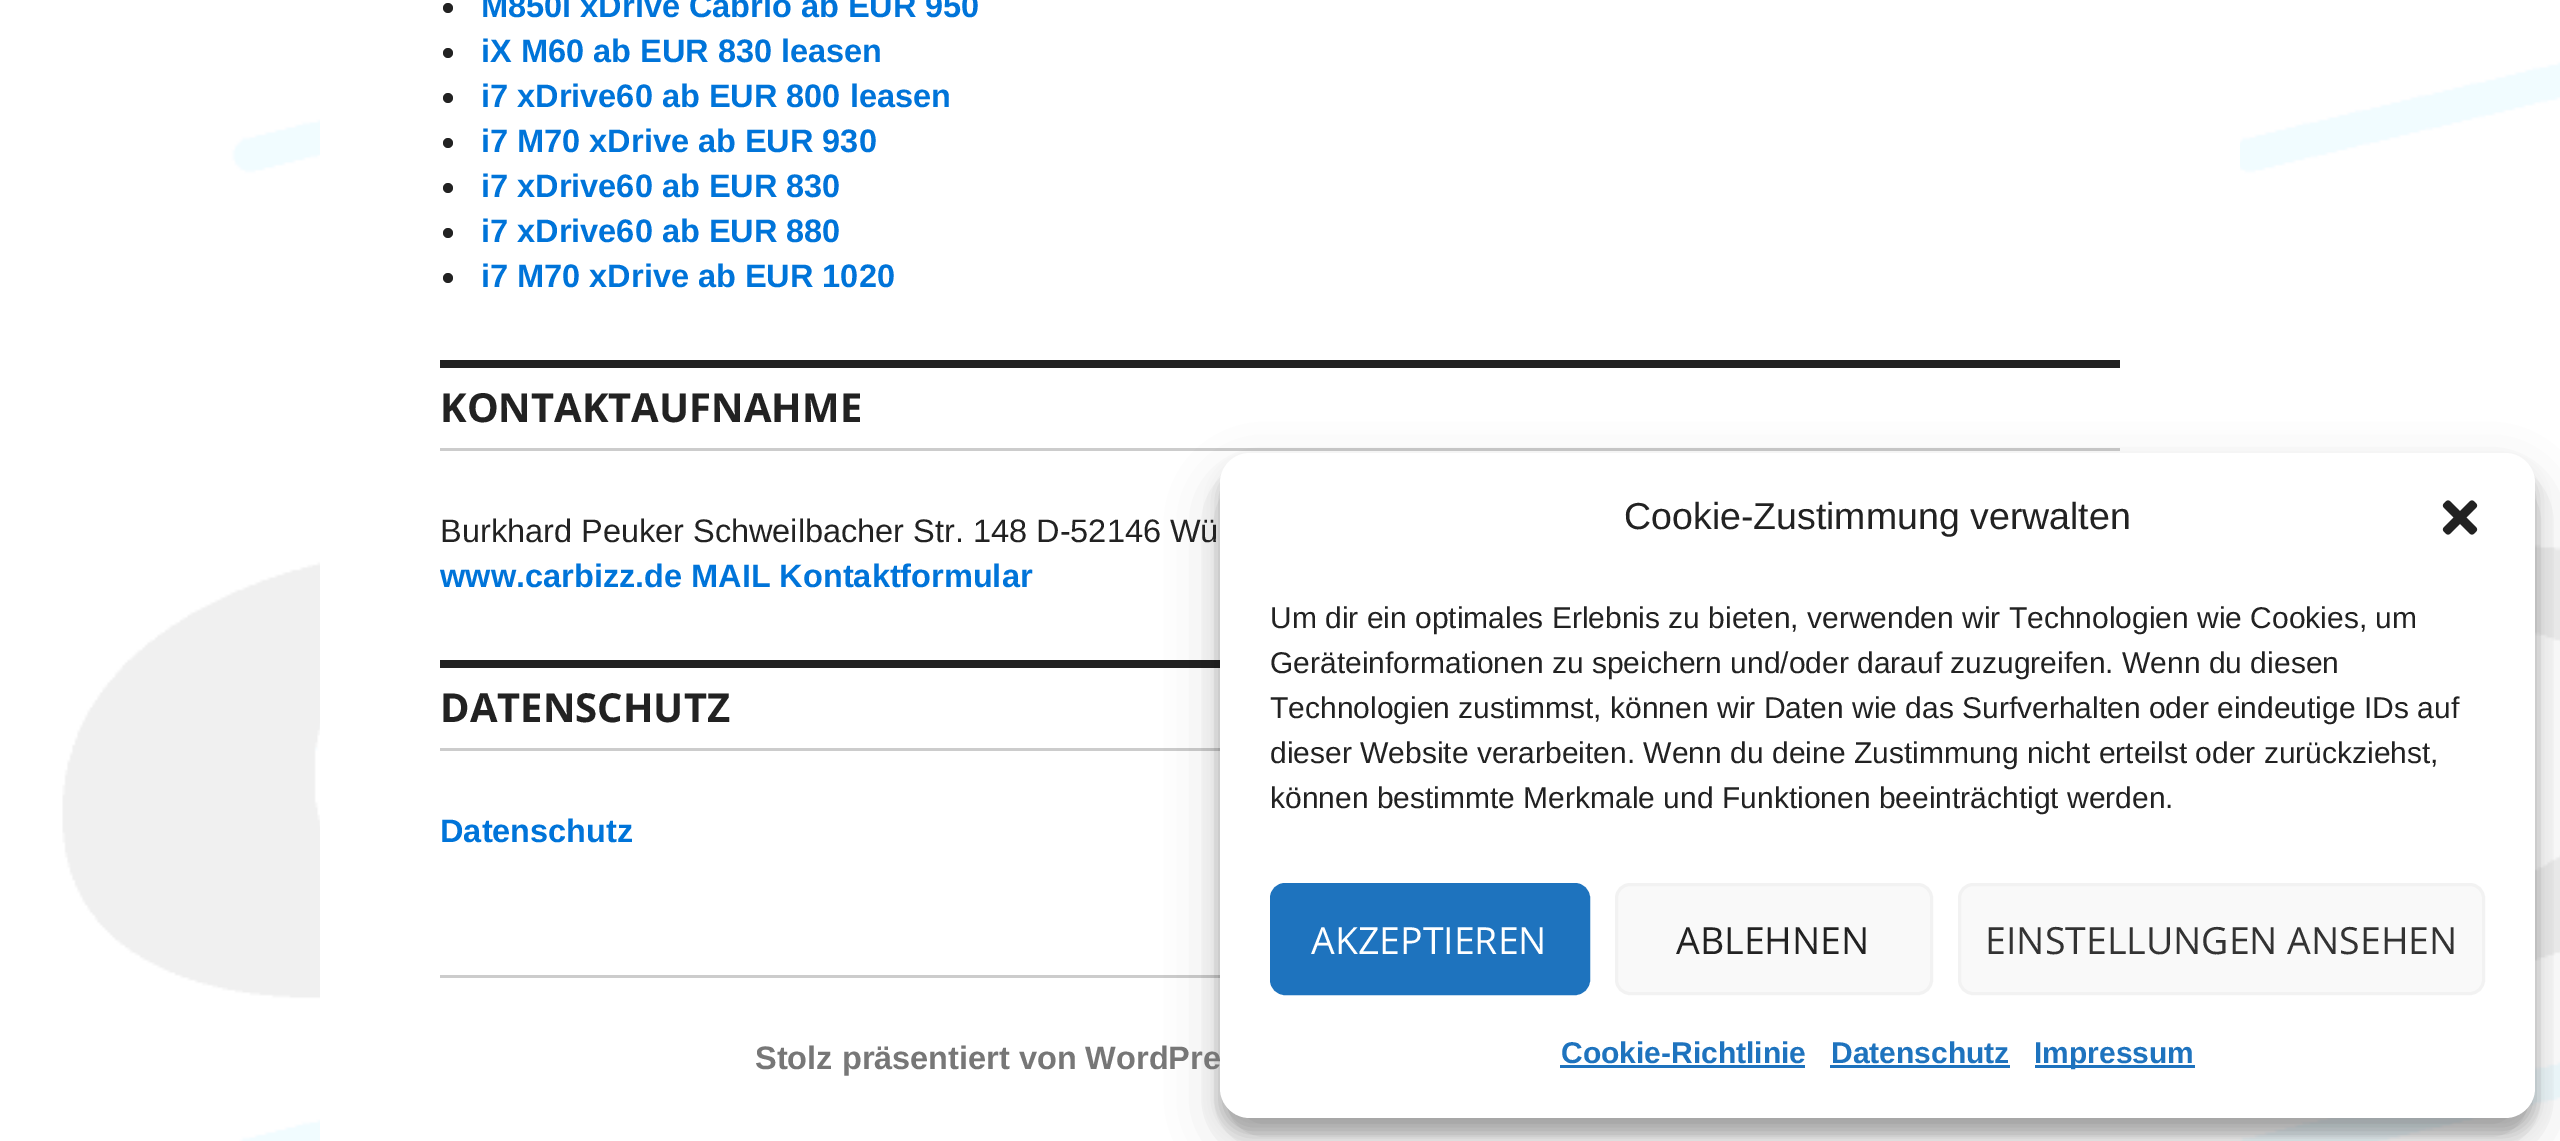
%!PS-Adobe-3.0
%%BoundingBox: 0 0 2560 1141
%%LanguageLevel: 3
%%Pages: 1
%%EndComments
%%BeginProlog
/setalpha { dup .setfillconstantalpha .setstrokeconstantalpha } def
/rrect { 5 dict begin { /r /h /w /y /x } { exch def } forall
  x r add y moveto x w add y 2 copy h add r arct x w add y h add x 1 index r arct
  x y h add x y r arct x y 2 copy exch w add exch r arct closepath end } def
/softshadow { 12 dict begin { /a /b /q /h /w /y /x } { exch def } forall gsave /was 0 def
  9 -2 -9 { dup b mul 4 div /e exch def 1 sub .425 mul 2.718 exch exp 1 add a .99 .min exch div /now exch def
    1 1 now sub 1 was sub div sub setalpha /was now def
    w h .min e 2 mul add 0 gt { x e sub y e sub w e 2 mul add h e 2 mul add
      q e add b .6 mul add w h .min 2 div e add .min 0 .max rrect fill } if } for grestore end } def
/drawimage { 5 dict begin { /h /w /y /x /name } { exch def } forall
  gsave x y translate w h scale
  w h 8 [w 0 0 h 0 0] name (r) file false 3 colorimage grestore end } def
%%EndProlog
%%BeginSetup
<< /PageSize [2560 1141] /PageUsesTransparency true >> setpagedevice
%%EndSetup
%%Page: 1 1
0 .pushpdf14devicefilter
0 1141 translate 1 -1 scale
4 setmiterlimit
1 setgray
0 0 2560 1141 rectfill
(images/1.raw) 62 0 2498 1141 drawimage
320 0 1920 1141 rectfill
0.133 setgray
newpath 448 8 5 0 360 arc closepath fill
newpath 448 53 5 0 360 arc closepath fill
newpath 448 98 5 0 360 arc closepath fill
newpath 448 143 5 0 360 arc closepath fill
newpath 448 188 5 0 360 arc closepath fill
newpath 448 233 5 0 360 arc closepath fill
newpath 448 278 5 0 360 arc closepath fill
440 360 1680 8 rectfill
0.8 setgray
440 448 1680 3 rectfill
0.133 setgray
440 660 780 8 rectfill
0.8 setgray
440 748 780 3 rectfill
440 975 780 3 rectfill
0 setgray
1220 468 1315 665 30 7.5 0.23 softshadow
1220 478 1315 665 30 25 0.19 softshadow
1 setgray
1220 453 1315 665 30 rrect fill
(images/2.raw) 2442 500 36 35 drawimage
0.118 0.451 0.745 setrgbcolor
1271.5 884.5 317 109 13.5 rrect gsave fill grestore
3 setlinewidth
stroke
0.976 setgray
1616.5 884.5 315 109 13.5 rrect gsave fill grestore
0.949 setgray
stroke
0.976 setgray
1959.5 884.5 524 109 13.5 rrect gsave fill grestore
0.949 setgray
stroke
0.118 0.451 0.745 setrgbcolor
1560 1065 245 3 rectfill
1830 1065 180 3 rectfill
2035 1065 160 3 rectfill
/LiberationSans-Bold [32.5 0 0 -32.5 0 0] selectfont
0 0.455 0.851 setrgbcolor
481 17 moveto (M850i xDrive Cabrio ab EUR 950) show
481 62 moveto (iX M60 ab EUR 830 leasen) show
481 107 moveto (i7 xDrive60 ab EUR 800 leasen) show
481 152 moveto (i7 M70 xDrive ab EUR 930) show
481 197 moveto (i7 xDrive60 ab EUR 830) show
481 242 moveto (i7 xDrive60 ab EUR 880) show
481 287 moveto (i7 M70 xDrive ab EUR 1020) show
/OpenSans-Bold [40 0 0 -40 0 0] selectfont
0.133 setgray
440 422 moveto (KONTAKTAUFNAHME) show
/LiberationSans-Regular [32.5 0 0 -32.5 0 0] selectfont
440 542 moveto (Burkhard Peuker Schweilbacher Str. 148 D-52146 Wü) show
/LiberationSans-Bold [32.5 0 0 -32.5 0 0] selectfont
0 0.455 0.851 setrgbcolor
440 587 moveto (www.carbizz.de MAIL Kontaktformular) show
/OpenSans-Bold [40 0 0 -40 0 0] selectfont
0.133 setgray
440 722 moveto (DATENSCHUTZ) show
/LiberationSans-Bold [32.5 0 0 -32.5 0 0] selectfont
0 0.455 0.851 setrgbcolor
440 842 moveto (Datenschutz) show
0.467 setgray
755 1069 moveto (Stolz präsentiert von WordPre) show
/LiberationSans-Regular [37.5 0 0 -37.5 0 0] selectfont
0.133 setgray
1624 529 moveto (Cookie-Zustimmung verwalten) show
/LiberationSans-Regular [30 0 0 -30 0 0] selectfont
1270 628 moveto (Um dir ein optimales Erlebnis zu bieten, verwenden wir Technologien wie Cookies, um) show
1270 673 moveto (Geräteinformationen zu speichern und/oder darauf zuzugreifen. Wenn du diesen) show
1270 718 moveto (Technologien zustimmst, können wir Daten wie das Surfverhalten oder eindeutige IDs auf) show
1270 763 moveto (dieser Website verarbeiten. Wenn du deine Zustimmung nicht erteilst oder zurückziehst,) show
1270 808 moveto (können bestimmte Merkmale und Funktionen beeinträchtigt werden.) show
/OpenSans-Regular [37.5 0 0 -37.5 0 0] selectfont
1 setgray
1311 954 moveto (AKZEPTIEREN) show
0.133 setgray
1676 954 moveto (ABLEHNEN) show
0.2 setgray
1985 954 moveto (EINSTELLUNGEN ANSEHEN) show
/LiberationSans-Bold [30 0 0 -30 0 0] selectfont
0.118 0.451 0.745 setrgbcolor
1561 1063 moveto (Cookie-Richtlinie) show
1831 1063 moveto (Datenschutz) show
2034 1063 moveto (Impressum) show
.poppdf14devicefilter showpage
%%EOF
